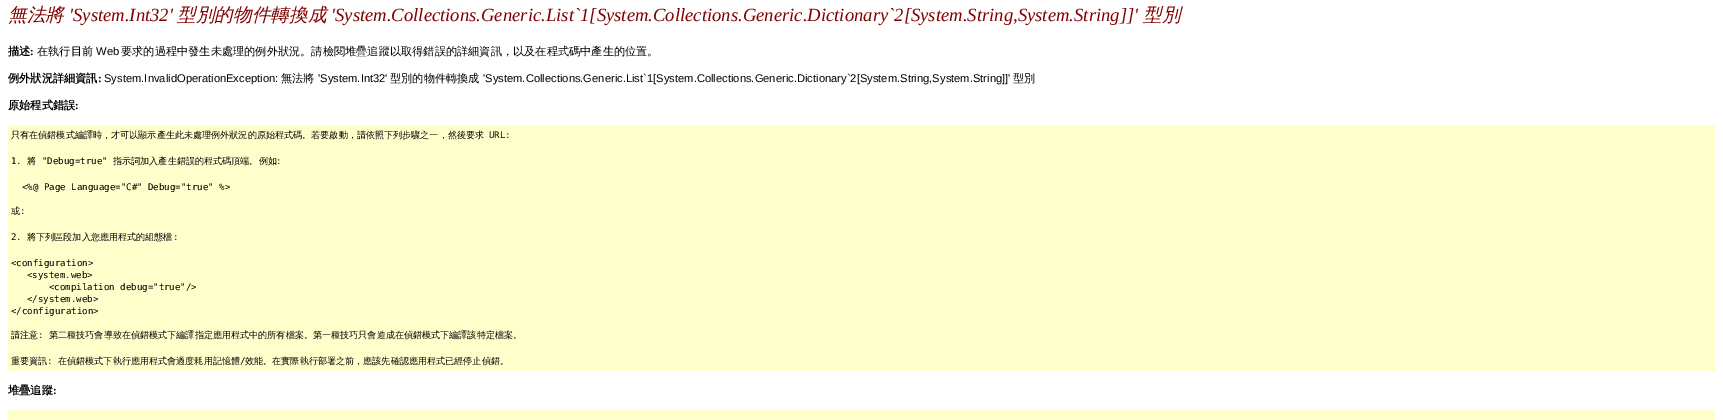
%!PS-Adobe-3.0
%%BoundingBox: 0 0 1723 420
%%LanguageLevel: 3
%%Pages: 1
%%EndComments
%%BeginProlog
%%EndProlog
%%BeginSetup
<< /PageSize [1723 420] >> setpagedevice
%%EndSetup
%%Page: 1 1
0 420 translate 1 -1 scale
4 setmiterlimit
1 setgray
0 0 1723 420 rectfill
1 1 0.8 setrgbcolor
8 125 1707 246 rectfill
8 410 1707 10 rectfill
/WenQuanYiZenHei-MediumItalic [18.65 0 0 -18.65 0 0] selectfont
0.502 0 0 setrgbcolor
8 21 moveto (無法將) show
/LiberationSerif-Italic [18.65 0 0 -18.65 0 0] selectfont
69 21 moveto ('System.Int32') show
/WenQuanYiZenHei-MediumItalic [18.65 0 0 -18.65 0 0] selectfont
177 21 moveto (型別的物件轉換成) show
/LiberationSerif-Italic [18.65 0 0 -18.65 0 0] selectfont
331 21 moveto ('System.Collections.Generic.List`1[System.Collections.Generic.Dictionary`2[System.String,System.String]]') show
/WenQuanYiZenHei-MediumItalic [18.65 0 0 -18.65 0 0] selectfont
1143 21 moveto (型別) show
/WenQuanYiZenHei-Bold [11.2 0 0 -11.2 0 0] selectfont
0 setgray
8 55 moveto (描述) show
/LiberationSerif-Bold [11.2 0 0 -11.2 0 0] selectfont
30 55 moveto (:) show
/WenQuanYiZenHei-Medium [11.2 0 0 -11.2 0 0] selectfont
37 55 moveto (在執行目前) show
/LiberationSans-Regular [11.2 0 0 -11.2 0 0] selectfont
96 55 moveto (Web) show
/WenQuanYiZenHei-Medium [11.2 0 0 -11.2 0 0] selectfont
121 55 moveto (要求的過程中發生未處理的例外狀況。請檢閱堆疊追蹤以取得錯誤的詳細資訊，以及在程式碼中產生的位置。) show
/WenQuanYiZenHei-Bold [11.2 0 0 -11.2 0 0] selectfont
8 82 moveto (例外狀況詳細資訊) show
/LiberationSerif-Bold [11.2 0 0 -11.2 0 0] selectfont
98 82 moveto (:) show
/LiberationSans-Regular [11.2 0 0 -11.2 0 0] selectfont
104 82 moveto (System.InvalidOperationException:) show
/WenQuanYiZenHei-Medium [11.2 0 0 -11.2 0 0] selectfont
281 82 moveto (無法將) show
/LiberationSans-Regular [11.2 0 0 -11.2 0 0] selectfont
318 82 moveto ('System.Int32') show
/WenQuanYiZenHei-Medium [11.2 0 0 -11.2 0 0] selectfont
390 82 moveto (型別的物件轉換成) show
/LiberationSans-Regular [11.2 0 0 -11.2 0 0] selectfont
483 82 moveto ('System.Collections.Generic.List`1[System.Collections.Generic.Dictionary`2[System.String,System.String]]') show
/WenQuanYiZenHei-Medium [11.2 0 0 -11.2 0 0] selectfont
1013 82 moveto (型別) show
/WenQuanYiZenHei-Bold [11.2 0 0 -11.2 0 0] selectfont
8 109 moveto (原始程式錯誤) show
/LiberationSerif-Bold [11.2 0 0 -11.2 0 0] selectfont
75 109 moveto (:) show
/WenQuanYiZenHei-Medium [9.1 0 0 -9.1 0 0] selectfont
11 138 moveto (只有在偵錯模式編譯時，才可以顯示產生此未處理例外狀況的原始程式碼。若要啟動，請依照下列步驟之一，然後要求) show
/DejaVuSansMono-Regular [9.1 0 0 -9.1 0 0] selectfont
489 138 moveto (URL:) show
11 164 moveto (1.) show
/WenQuanYiZenHei-Medium [9.1 0 0 -9.1 0 0] selectfont
27 164 moveto (將) show
/DejaVuSansMono-Regular [9.1 0 0 -9.1 0 0] selectfont
42 164 moveto ("Debug=true") show
/WenQuanYiZenHei-Medium [9.1 0 0 -9.1 0 0] selectfont
113 164 moveto (指示詞加入產生錯誤的程式碼頂端。例如) show
/DejaVuSansMono-Regular [9.1 0 0 -9.1 0 0] selectfont
276 164 moveto (:) show
22 190 moveto (<%@ Page Language="C#" Debug="true" %>) show
/WenQuanYiZenHei-Medium [9.1 0 0 -9.1 0 0] selectfont
11 214 moveto (或) show
/DejaVuSansMono-Regular [9.1 0 0 -9.1 0 0] selectfont
20 214 moveto (:) show
11 240 moveto (2.) show
/WenQuanYiZenHei-Medium [9.1 0 0 -9.1 0 0] selectfont
27 240 moveto (將下列區段加入您應用程式的組態檔) show
/DejaVuSansMono-Regular [9.1 0 0 -9.1 0 0] selectfont
173 240 moveto (:) show
11 266 moveto (<configuration>) show
27 278 moveto (<system.web>) show
49 290 moveto (<compilation debug="true"/>) show
27 302 moveto (</system.web>) show
11 314 moveto (</configuration>) show
/WenQuanYiZenHei-Medium [9.1 0 0 -9.1 0 0] selectfont
11 338 moveto (請注意) show
/DejaVuSansMono-Regular [9.1 0 0 -9.1 0 0] selectfont
38 338 moveto (:) show
/WenQuanYiZenHei-Medium [9.1 0 0 -9.1 0 0] selectfont
49 338 moveto (第二種技巧會導致在偵錯模式下編譯指定應用程式中的所有檔案。第一種技巧只會造成在偵錯模式下編譯該特定檔案。) show
11 364 moveto (重要資訊) show
/DejaVuSansMono-Regular [9.1 0 0 -9.1 0 0] selectfont
47 364 moveto (:) show
/WenQuanYiZenHei-Medium [9.1 0 0 -9.1 0 0] selectfont
58 364 moveto (在偵錯模式下執行應用程式會過度耗用記憶體) show
/DejaVuSansMono-Regular [9.1 0 0 -9.1 0 0] selectfont
240 364 moveto (/) show
/WenQuanYiZenHei-Medium [9.1 0 0 -9.1 0 0] selectfont
245 364 moveto (效能。在實際執行部署之前，應該先確認應用程式已經停止偵錯。) show
/WenQuanYiZenHei-Bold [11.2 0 0 -11.2 0 0] selectfont
8 394 moveto (堆疊追蹤) show
/LiberationSerif-Bold [11.2 0 0 -11.2 0 0] selectfont
53 394 moveto (:) show
showpage
%%EOF
